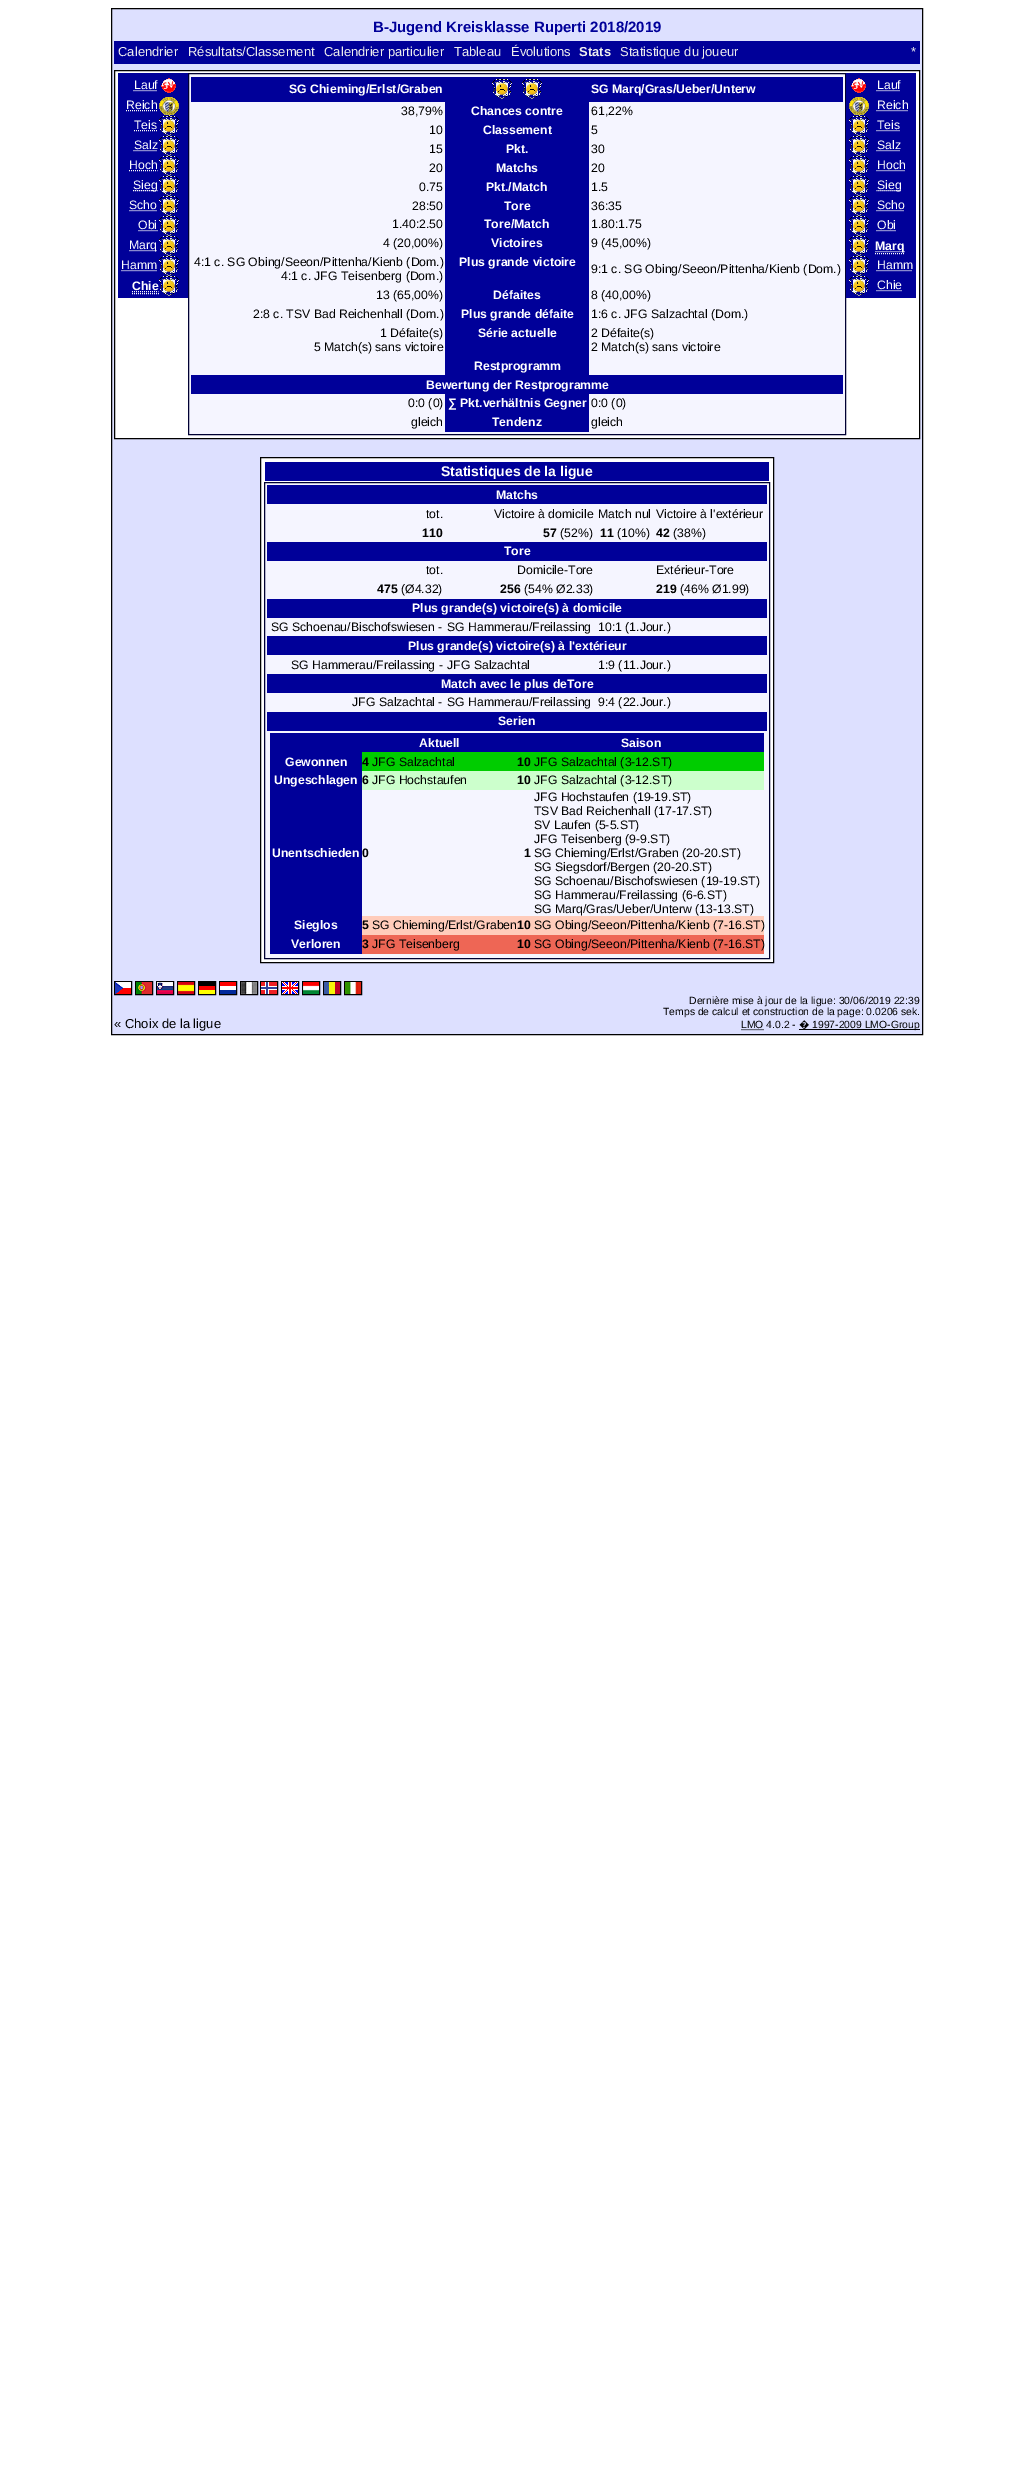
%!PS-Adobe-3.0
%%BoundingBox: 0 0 1034 2468
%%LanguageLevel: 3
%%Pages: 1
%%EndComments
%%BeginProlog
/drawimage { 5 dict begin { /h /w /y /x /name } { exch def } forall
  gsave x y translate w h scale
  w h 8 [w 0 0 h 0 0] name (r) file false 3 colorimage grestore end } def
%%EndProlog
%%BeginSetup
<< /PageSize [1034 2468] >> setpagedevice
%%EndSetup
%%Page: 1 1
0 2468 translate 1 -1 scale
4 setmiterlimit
1 setgray
0 0 1034 2468 rectfill
0.867 0.878 1 setrgbcolor
newpath 111.5 8.5 moveto 922.5 8.5 lineto 922.5 1034.5 lineto 111.5 1034.5 lineto closepath gsave fill grestore
0 setgray
stroke
0 0 0.6 setrgbcolor
114 41 806 23 rectfill
1 setgray
newpath 114.5 70.5 moveto 919.5 70.5 lineto 919.5 438.5 lineto 114.5 438.5 lineto closepath gsave fill grestore
0 setgray
stroke
0 0 0.6 setrgbcolor
118 73 70 225 rectfill
1 setgray
[1 1] 0 setdash
newpath 133.5 90.5 moveto 157.5 90.5 lineto stroke
(images/1.raw) 161 78 15 15 drawimage
newpath 126 110.5 moveto 157.5 110.5 lineto stroke
(images/2.raw) 159 97 20 19 drawimage
newpath 134 130.5 moveto 157.5 130.5 lineto stroke
(images/3.raw) 159 116 20 20 drawimage
newpath 133.5 150.5 moveto 157.5 150.5 lineto stroke
(images/3.raw) 159 136 20 20 drawimage
newpath 129 170.5 moveto 157.5 170.5 lineto stroke
(images/3.raw) 159 156 20 20 drawimage
newpath 133 190.5 moveto 157.5 190.5 lineto stroke
(images/3.raw) 159 176 20 20 drawimage
newpath 129.5 210.5 moveto 157.5 210.5 lineto stroke
(images/3.raw) 159 196 20 20 drawimage
newpath 138.5 230.5 moveto 157.5 230.5 lineto stroke
(images/3.raw) 159 216 20 20 drawimage
newpath 129.5 250.5 moveto 157.5 250.5 lineto stroke
(images/3.raw) 159 236 20 20 drawimage
newpath 121.5 270.5 moveto 157.5 270.5 lineto stroke
(images/3.raw) 159 256 20 20 drawimage
newpath 132 293.5 moveto 159 293.5 lineto 132 291.5 moveto 158.5 291.5 lineto stroke
(images/3.raw) 159 276 20 20 drawimage
0.961 0.961 1 setrgbcolor
newpath 188.5 73.5 moveto 845.5 73.5 lineto 845.5 434.5 lineto 188.5 434.5 lineto closepath gsave fill grestore
0 0 0.2 setrgbcolor
[] 0 setdash
stroke
0 0 0.6 setrgbcolor
191 77 652 25 rectfill
(images/3.raw) 492 79 20 20 drawimage
(images/3.raw) 522 79 20 20 drawimage
445 102 144 273 rectfill
191 375 652 19 rectfill
445 394 144 38 rectfill
846 73 70 225 rectfill
(images/1.raw) 851 78 15 15 drawimage
1 setgray
[1 1] 0 setdash
newpath 876.5 90.5 moveto 900.5 90.5 lineto stroke
(images/2.raw) 849 97 20 19 drawimage
newpath 876.5 110.5 moveto 908 110.5 lineto stroke
(images/3.raw) 849 116 20 20 drawimage
newpath 876.5 130.5 moveto 900 130.5 lineto stroke
(images/3.raw) 849 136 20 20 drawimage
newpath 876.5 150.5 moveto 900.5 150.5 lineto stroke
(images/3.raw) 849 156 20 20 drawimage
newpath 876.5 170.5 moveto 905 170.5 lineto stroke
(images/3.raw) 849 176 20 20 drawimage
newpath 876.5 190.5 moveto 901 190.5 lineto stroke
(images/3.raw) 849 196 20 20 drawimage
newpath 876.5 210.5 moveto 904.5 210.5 lineto stroke
(images/3.raw) 849 216 20 20 drawimage
newpath 876.5 230.5 moveto 895.5 230.5 lineto stroke
(images/3.raw) 849 236 20 20 drawimage
newpath 875 253.5 moveto 905 253.5 lineto 875.5 251.5 moveto 904.5 251.5 lineto stroke
(images/3.raw) 849 256 20 20 drawimage
newpath 876.5 270.5 moveto 912.5 270.5 lineto stroke
(images/3.raw) 849 276 20 20 drawimage
newpath 876.5 290.5 moveto 902 290.5 lineto stroke
newpath 260.5 457.5 moveto 773.5 457.5 lineto 773.5 962.5 lineto 260.5 962.5 lineto closepath gsave fill grestore
0 setgray
[] 0 setdash
stroke
0 0 0.6 setrgbcolor
265 462 504 19 rectfill
0.961 0.961 1 setrgbcolor
newpath 264.5 482.5 moveto 769.5 482.5 lineto 769.5 958.5 lineto 264.5 958.5 lineto closepath gsave fill grestore
0 0 0.2 setrgbcolor
stroke
0 0 0.6 setrgbcolor
267 485 500 19 rectfill
267 542 500 19 rectfill
267 599 500 19 rectfill
267 636 500 19 rectfill
267 674 500 19 rectfill
267 712 500 19 rectfill
270 733 494 19 rectfill
270 752 92 202 rectfill
0 0.8 0 setrgbcolor
362 752 402 19 rectfill
0.8 1 0.8 setrgbcolor
362 771 402 19 rectfill
1 0.8 0.733 setrgbcolor
362 916 402 19 rectfill
0.933 0.4 0.333 setrgbcolor
362 935 402 19 rectfill
0 setgray
114.5 981.5 17 13 rectstroke
135.5 981.5 17 13 rectstroke
156.5 981.5 17 13 rectstroke
177.5 981.5 17 13 rectstroke
198.5 981.5 17 13 rectstroke
219.5 981.5 17 13 rectstroke
240.5 981.5 17 13 rectstroke
260.5 981.5 17 13 rectstroke
281.5 981.5 17 13 rectstroke
302.5 981.5 17 13 rectstroke
323.5 981.5 17 13 rectstroke
344.5 981.5 17 13 rectstroke
(images/4.raw) 115 982 16 12 drawimage
(images/5.raw) 136 982 16 12 drawimage
(images/6.raw) 157 982 16 12 drawimage
(images/7.raw) 178 982 16 12 drawimage
(images/8.raw) 199 982 16 12 drawimage
(images/9.raw) 220 982 16 12 drawimage
(images/10.raw) 241 982 16 12 drawimage
(images/11.raw) 261 982 16 12 drawimage
(images/12.raw) 282 982 16 12 drawimage
(images/13.raw) 303 982 16 12 drawimage
(images/14.raw) 324 982 16 12 drawimage
(images/15.raw) 345 982 16 12 drawimage
[1 1] 0 setdash
newpath 741.5 1029.5 moveto 764 1029.5 lineto stroke
799 1029 121 1 rectfill
/LiberationSans-Bold [15 0 0 -15 0 0] selectfont
0 0 0.6 setrgbcolor
373 32 moveto (B-Jugend Kreisklasse Ruperti 2018/2019) show
/LiberationSans-Regular [13 0 0 -13 0 0] selectfont
0.933 setgray
118 56 moveto (Calendrier) show
188 56 moveto (Résultats/Classement) show
324 56 moveto (Calendrier particulier) show
454 56 moveto (Tableau) show
511 56 moveto (Évolutions) show
/LiberationSans-Bold [13 0 0 -13 0 0] selectfont
579 56 moveto (Stats) show
/LiberationSans-Regular [13 0 0 -13 0 0] selectfont
620 56 moveto (Statistique du joueur) show
911 56 moveto (*) show
/LiberationSans-Regular [12.25 0 0 -12.25 0 0] selectfont
1 setgray
134 89 moveto (Lauf) show
126 109 moveto (Reich) show
134 129 moveto (Teis) show
134 149 moveto (Salz) show
129 169 moveto (Hoch) show
133 189 moveto (Sieg) show
129 209 moveto (Scho) show
138 229 moveto (Obi) show
129 249 moveto (Marq) show
121 269 moveto (Hamm) show
/LiberationSans-Bold [12.25 0 0 -12.25 0 0] selectfont
132 290 moveto (Chie) show
289 93 moveto (SG Chieming/Erlst/Graben) show
591 93 moveto (SG Marq/Gras/Ueber/Unterw) show
/LiberationSans-Regular [12.25 0 0 -12.25 0 0] selectfont
0 setgray
401 115 moveto (38,79%) show
/LiberationSans-Bold [12.25 0 0 -12.25 0 0] selectfont
1 setgray
471 115 moveto (Chances contre) show
/LiberationSans-Regular [12.25 0 0 -12.25 0 0] selectfont
0 setgray
591 115 moveto (61,22%) show
429 134 moveto (10) show
/LiberationSans-Bold [12.25 0 0 -12.25 0 0] selectfont
1 setgray
483 134 moveto (Classement) show
/LiberationSans-Regular [12.25 0 0 -12.25 0 0] selectfont
0 setgray
591 134 moveto (5) show
429 153 moveto (15) show
/LiberationSans-Bold [12.25 0 0 -12.25 0 0] selectfont
1 setgray
506 153 moveto (Pkt.) show
/LiberationSans-Regular [12.25 0 0 -12.25 0 0] selectfont
0 setgray
591 153 moveto (30) show
429 172 moveto (20) show
/LiberationSans-Bold [12.25 0 0 -12.25 0 0] selectfont
1 setgray
496 172 moveto (Matchs) show
/LiberationSans-Regular [12.25 0 0 -12.25 0 0] selectfont
0 setgray
591 172 moveto (20) show
419 191 moveto (0.75) show
/LiberationSans-Bold [12.25 0 0 -12.25 0 0] selectfont
1 setgray
486 191 moveto (Pkt./Match) show
/LiberationSans-Regular [12.25 0 0 -12.25 0 0] selectfont
0 setgray
591 191 moveto (1.5) show
412 210 moveto (28:50) show
/LiberationSans-Bold [12.25 0 0 -12.25 0 0] selectfont
1 setgray
504 210 moveto (Tore) show
/LiberationSans-Regular [12.25 0 0 -12.25 0 0] selectfont
0 setgray
591 210 moveto (36:35) show
392 228 moveto (1.40:2.50) show
/LiberationSans-Bold [12.25 0 0 -12.25 0 0] selectfont
1 setgray
484 228 moveto (Tore/Match) show
/LiberationSans-Regular [12.25 0 0 -12.25 0 0] selectfont
0 setgray
591 228 moveto (1.80:1.75) show
383 247 moveto (4 \(20,00%\)) show
/LiberationSans-Bold [12.25 0 0 -12.25 0 0] selectfont
1 setgray
491 247 moveto (Victoires) show
/LiberationSans-Regular [12.25 0 0 -12.25 0 0] selectfont
0 setgray
591 247 moveto (9 \(45,00%\)) show
194 266 moveto (4:1 c. SG Obing/Seeon/Pittenha/Kienb \(Dom.\)) show
281 280 moveto (4:1 c. JFG Teisenberg \(Dom.\)) show
/LiberationSans-Bold [12.25 0 0 -12.25 0 0] selectfont
1 setgray
459 266 moveto (Plus grande victoire) show
/LiberationSans-Regular [12.25 0 0 -12.25 0 0] selectfont
0 setgray
591 273 moveto (9:1 c. SG Obing/Seeon/Pittenha/Kienb \(Dom.\)) show
376 299 moveto (13 \(65,00%\)) show
/LiberationSans-Bold [12.25 0 0 -12.25 0 0] selectfont
1 setgray
493 299 moveto (Défaites) show
/LiberationSans-Regular [12.25 0 0 -12.25 0 0] selectfont
0 setgray
591 299 moveto (8 \(40,00%\)) show
253 318 moveto (2:8 c. TSV Bad Reichenhall \(Dom.\)) show
/LiberationSans-Bold [12.25 0 0 -12.25 0 0] selectfont
1 setgray
461 318 moveto (Plus grande défaite) show
/LiberationSans-Regular [12.25 0 0 -12.25 0 0] selectfont
0 setgray
591 318 moveto (1:6 c. JFG Salzachtal \(Dom.\)) show
380 337 moveto (1 Défaite\(s\)) show
314 351 moveto (5 Match\(s\) sans victoire) show
/LiberationSans-Bold [12.25 0 0 -12.25 0 0] selectfont
1 setgray
478 337 moveto (Série actuelle) show
/LiberationSans-Regular [12.25 0 0 -12.25 0 0] selectfont
0 setgray
591 337 moveto (2 Défaite\(s\)) show
591 351 moveto (2 Match\(s\) sans victoire) show
/LiberationSans-Bold [12.25 0 0 -12.25 0 0] selectfont
1 setgray
474 370 moveto (Restprogramm) show
426 389 moveto (Bewertung der Restprogramme) show
/LiberationSans-Regular [12.25 0 0 -12.25 0 0] selectfont
0 setgray
408 407 moveto (0:0 \(0\)) show
/LiberationSans-Bold [12.25 0 0 -12.25 0 0] selectfont
1 setgray
448 407 moveto (∑ Pkt.verhältnis Gegner) show
/LiberationSans-Regular [12.25 0 0 -12.25 0 0] selectfont
0 setgray
591 407 moveto (0:0 \(0\)) show
411 426 moveto (gleich) show
/LiberationSans-Bold [12.25 0 0 -12.25 0 0] selectfont
1 setgray
492 426 moveto (Tendenz) show
/LiberationSans-Regular [12.25 0 0 -12.25 0 0] selectfont
0 setgray
591 426 moveto (gleich) show
1 setgray
877 89 moveto (Lauf) show
877 109 moveto (Reich) show
877 129 moveto (Teis) show
877 149 moveto (Salz) show
877 169 moveto (Hoch) show
877 189 moveto (Sieg) show
877 209 moveto (Scho) show
877 229 moveto (Obi) show
/LiberationSans-Bold [12.25 0 0 -12.25 0 0] selectfont
875 250 moveto (Marq) show
/LiberationSans-Regular [12.25 0 0 -12.25 0 0] selectfont
877 269 moveto (Hamm) show
877 289 moveto (Chie) show
/LiberationSans-Bold [14 0 0 -14 0 0] selectfont
441 476 moveto (Statistiques de la ligue) show
/LiberationSans-Bold [12.25 0 0 -12.25 0 0] selectfont
496 499 moveto (Matchs) show
/LiberationSans-Regular [12.25 0 0 -12.25 0 0] selectfont
0 setgray
426 518 moveto (tot.) show
494 518 moveto (Victoire à domicile) show
598 518 moveto (Match nul) show
656 518 moveto (Victoire à l'extérieur) show
/LiberationSans-Bold [12.25 0 0 -12.25 0 0] selectfont
422 537 moveto (110) show
543 537 moveto (57) show
/LiberationSans-Regular [12.25 0 0 -12.25 0 0] selectfont
560 537 moveto (\(52%\)) show
/LiberationSans-Bold [12.25 0 0 -12.25 0 0] selectfont
600 537 moveto (11) show
/LiberationSans-Regular [12.25 0 0 -12.25 0 0] selectfont
617 537 moveto (\(10%\)) show
/LiberationSans-Bold [12.25 0 0 -12.25 0 0] selectfont
656 537 moveto (42) show
/LiberationSans-Regular [12.25 0 0 -12.25 0 0] selectfont
673 537 moveto (\(38%\)) show
/LiberationSans-Bold [12.25 0 0 -12.25 0 0] selectfont
1 setgray
504 555 moveto (Tore) show
/LiberationSans-Regular [12.25 0 0 -12.25 0 0] selectfont
0 setgray
426 574 moveto (tot.) show
517 574 moveto (Domicile-Tore) show
656 574 moveto (Extérieur-Tore) show
/LiberationSans-Bold [12.25 0 0 -12.25 0 0] selectfont
377 593 moveto (475) show
/LiberationSans-Regular [12.25 0 0 -12.25 0 0] selectfont
401 593 moveto (\(Ø4.32\)) show
/LiberationSans-Bold [12.25 0 0 -12.25 0 0] selectfont
500 593 moveto (256) show
/LiberationSans-Regular [12.25 0 0 -12.25 0 0] selectfont
524 593 moveto (\(54% Ø2.33\)) show
/LiberationSans-Bold [12.25 0 0 -12.25 0 0] selectfont
656 593 moveto (219) show
/LiberationSans-Regular [12.25 0 0 -12.25 0 0] selectfont
680 593 moveto (\(46% Ø1.99\)) show
/LiberationSans-Bold [12.25 0 0 -12.25 0 0] selectfont
1 setgray
412 612 moveto (Plus grande\(s\) victoire\(s\) à domicile) show
/LiberationSans-Regular [12.25 0 0 -12.25 0 0] selectfont
0 setgray
271 631 moveto (SG Schoenau/Bischofswiesen -) show
447 631 moveto (SG Hammerau/Freilassing) show
598 631 moveto (10:1 \(1.Jour.\)) show
/LiberationSans-Bold [12.25 0 0 -12.25 0 0] selectfont
1 setgray
408 650 moveto (Plus grande\(s\) victoire\(s\) à l'extérieur) show
/LiberationSans-Regular [12.25 0 0 -12.25 0 0] selectfont
0 setgray
291 669 moveto (SG Hammerau/Freilassing -) show
447 669 moveto (JFG Salzachtal) show
598 669 moveto (1:9 \(11.Jour.\)) show
/LiberationSans-Bold [12.25 0 0 -12.25 0 0] selectfont
1 setgray
441 688 moveto (Match avec le plus deTore) show
/LiberationSans-Regular [12.25 0 0 -12.25 0 0] selectfont
0 setgray
352 706 moveto (JFG Salzachtal -) show
447 706 moveto (SG Hammerau/Freilassing) show
598 706 moveto (9:4 \(22.Jour.\)) show
/LiberationSans-Bold [12.25 0 0 -12.25 0 0] selectfont
1 setgray
498 725 moveto (Serien) show
419 747 moveto (Aktuell) show
621 747 moveto (Saison) show
285 766 moveto (Gewonnen) show
0 setgray
362 766 moveto (4) show
/LiberationSans-Regular [12.25 0 0 -12.25 0 0] selectfont
372 766 moveto (JFG Salzachtal) show
/LiberationSans-Bold [12.25 0 0 -12.25 0 0] selectfont
517 766 moveto (10) show
/LiberationSans-Regular [12.25 0 0 -12.25 0 0] selectfont
534 766 moveto (JFG Salzachtal \(3-12.ST\)) show
/LiberationSans-Bold [12.25 0 0 -12.25 0 0] selectfont
1 setgray
274 784 moveto (Ungeschlagen) show
0 setgray
362 784 moveto (6) show
/LiberationSans-Regular [12.25 0 0 -12.25 0 0] selectfont
372 784 moveto (JFG Hochstaufen) show
/LiberationSans-Bold [12.25 0 0 -12.25 0 0] selectfont
517 784 moveto (10) show
/LiberationSans-Regular [12.25 0 0 -12.25 0 0] selectfont
534 784 moveto (JFG Salzachtal \(3-12.ST\)) show
/LiberationSans-Bold [12.25 0 0 -12.25 0 0] selectfont
1 setgray
272 857 moveto (Unentschieden) show
0 setgray
362 857 moveto (0) show
524 857 moveto (1) show
/LiberationSans-Regular [12.25 0 0 -12.25 0 0] selectfont
534 801 moveto (JFG Hochstaufen \(19-19.ST\)) show
534 815 moveto (TSV Bad Reichenhall \(17-17.ST\)) show
534 829 moveto (SV Laufen \(5-5.ST\)) show
534 843 moveto (JFG Teisenberg \(9-9.ST\)) show
534 857 moveto (SG Chieming/Erlst/Graben \(20-20.ST\)) show
534 871 moveto (SG Siegsdorf/Bergen \(20-20.ST\)) show
534 885 moveto (SG Schoenau/Bischofswiesen \(19-19.ST\)) show
534 899 moveto (SG Hammerau/Freilassing \(6-6.ST\)) show
534 913 moveto (SG Marq/Gras/Ueber/Unterw \(13-13.ST\)) show
/LiberationSans-Bold [12.25 0 0 -12.25 0 0] selectfont
1 setgray
294 929 moveto (Sieglos) show
0 setgray
362 929 moveto (5) show
/LiberationSans-Regular [12.25 0 0 -12.25 0 0] selectfont
372 929 moveto (SG Chieming/Erlst/Graben) show
/LiberationSans-Bold [12.25 0 0 -12.25 0 0] selectfont
517 929 moveto (10) show
/LiberationSans-Regular [12.25 0 0 -12.25 0 0] selectfont
534 929 moveto (SG Obing/Seeon/Pittenha/Kienb \(7-16.ST\)) show
/LiberationSans-Bold [12.25 0 0 -12.25 0 0] selectfont
1 setgray
291 948 moveto (Verloren) show
0 setgray
362 948 moveto (3) show
/LiberationSans-Regular [12.25 0 0 -12.25 0 0] selectfont
372 948 moveto (JFG Teisenberg) show
/LiberationSans-Bold [12.25 0 0 -12.25 0 0] selectfont
517 948 moveto (10) show
/LiberationSans-Regular [12.25 0 0 -12.25 0 0] selectfont
534 948 moveto (SG Obing/Seeon/Pittenha/Kienb \(7-16.ST\)) show
/LiberationSans-Regular [13 0 0 -13 0 0] selectfont
114 1028 moveto (« Choix de la ligue) show
/LiberationSans-Regular [10.4 0 0 -10.4 0 0] selectfont
689 1004 moveto (Dernière mise à jour de la ligue: 30/06/2019 22:39) show
663 1015 moveto (Temps de calcul et construction de la page: 0.0206 sek.) show
741 1028 moveto (LMO 4.0.2 -) show
/NotoSans-Regular [10.4 0 0 -10.4 0 0] selectfont
799 1028 moveto (�) show
/LiberationSans-Regular [10.4 0 0 -10.4 0 0] selectfont
812 1028 moveto (1997-2009 LMO-Group) show
showpage
%%EOF
